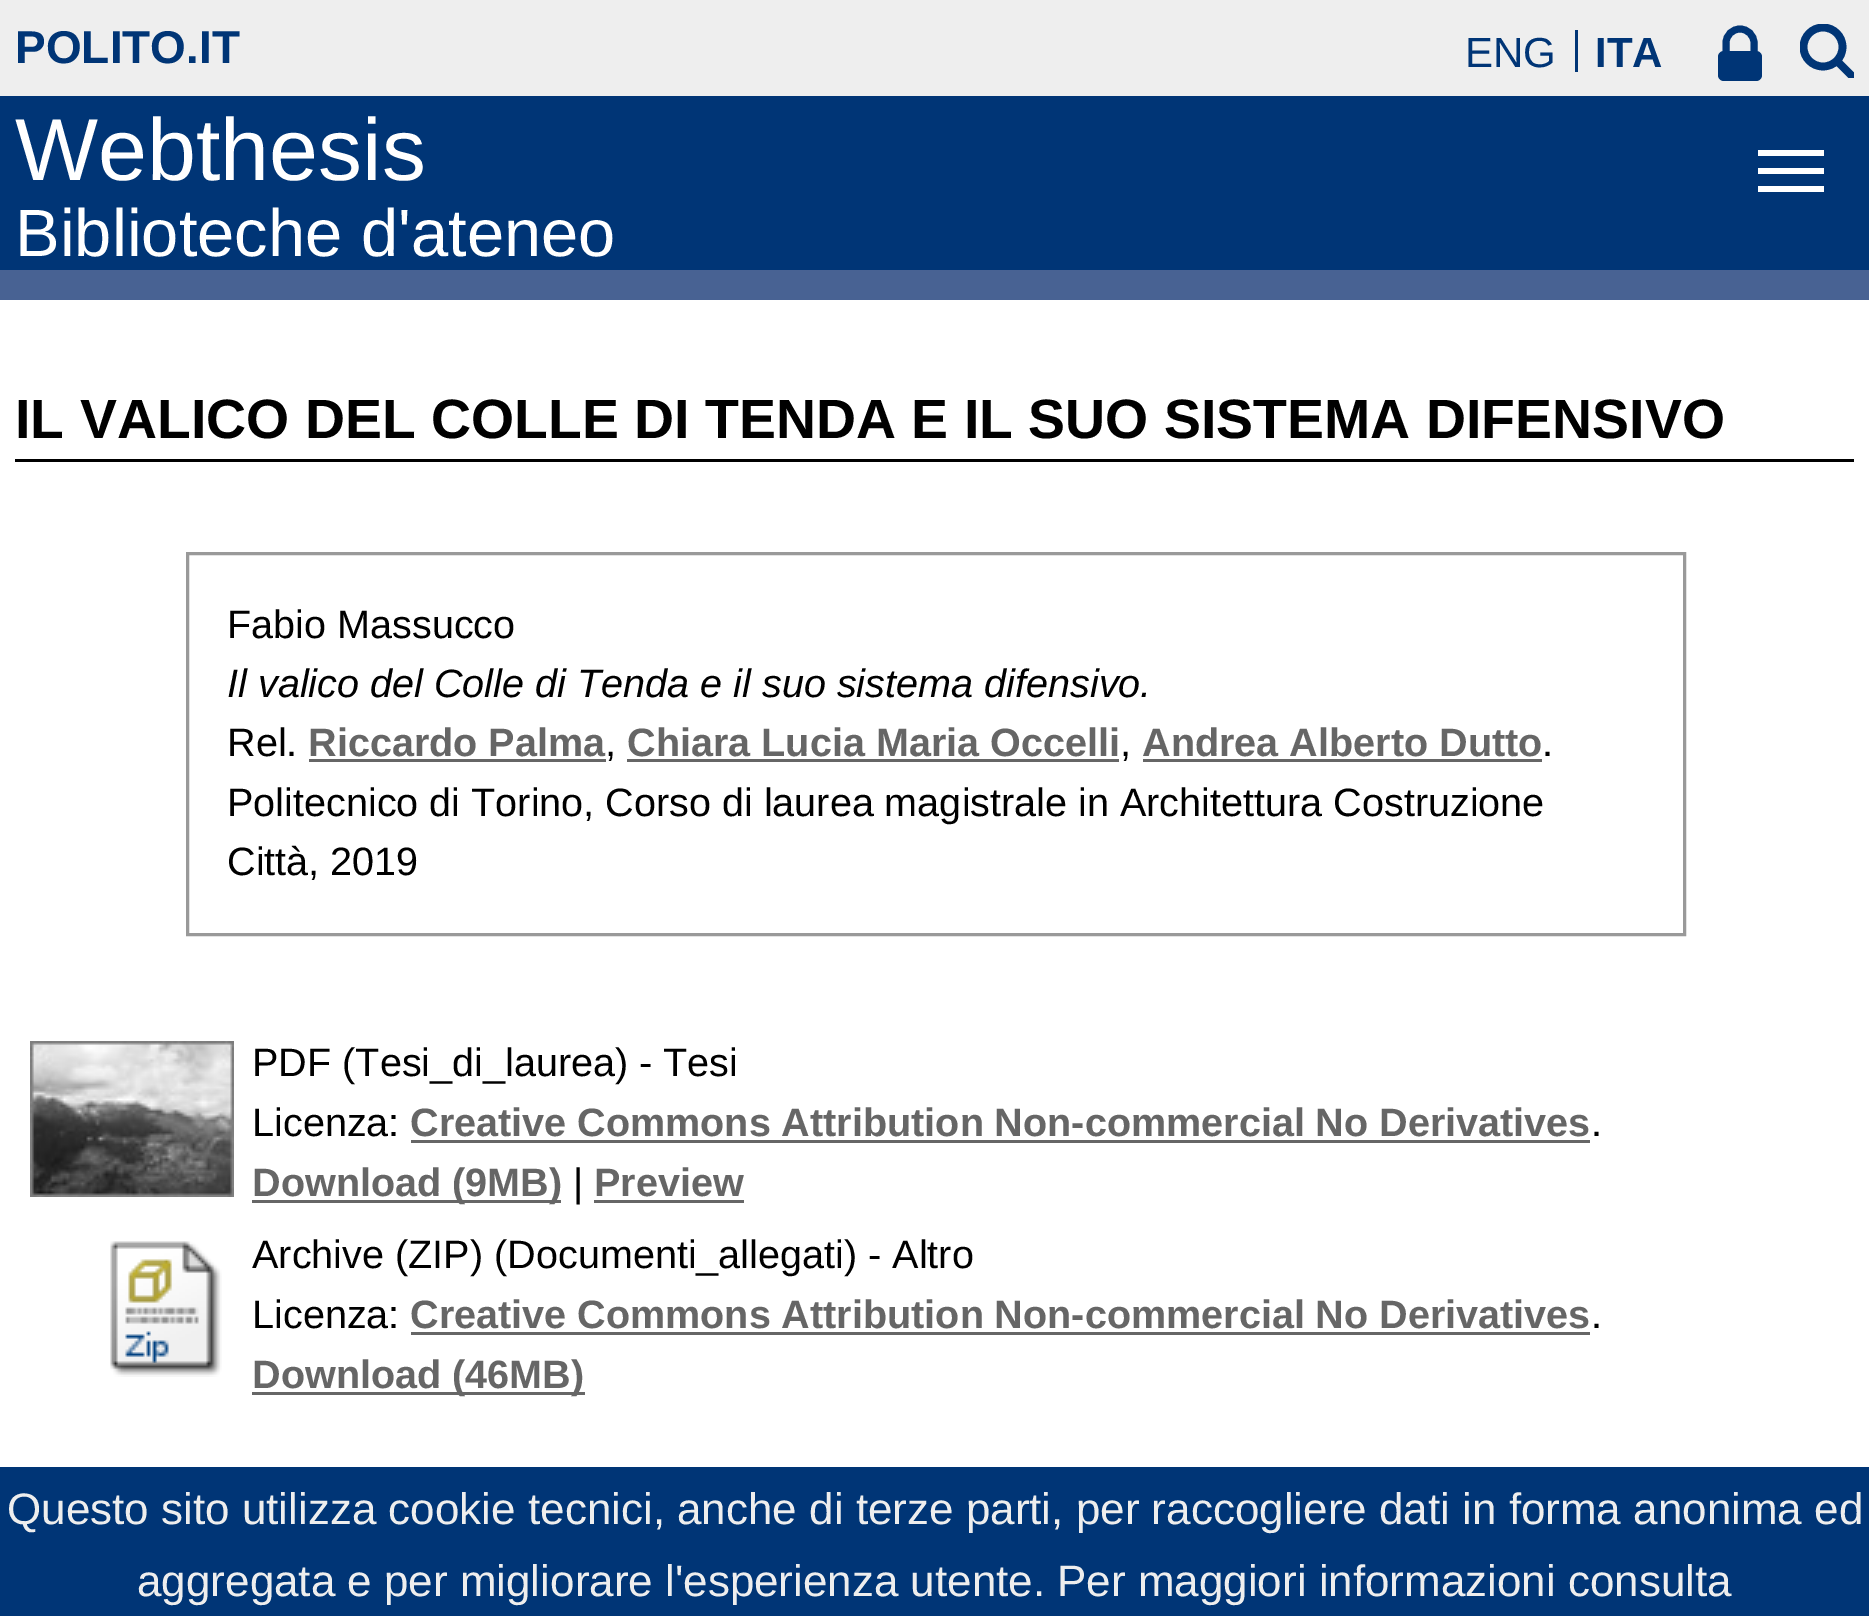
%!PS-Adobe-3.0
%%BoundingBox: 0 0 1869 1616
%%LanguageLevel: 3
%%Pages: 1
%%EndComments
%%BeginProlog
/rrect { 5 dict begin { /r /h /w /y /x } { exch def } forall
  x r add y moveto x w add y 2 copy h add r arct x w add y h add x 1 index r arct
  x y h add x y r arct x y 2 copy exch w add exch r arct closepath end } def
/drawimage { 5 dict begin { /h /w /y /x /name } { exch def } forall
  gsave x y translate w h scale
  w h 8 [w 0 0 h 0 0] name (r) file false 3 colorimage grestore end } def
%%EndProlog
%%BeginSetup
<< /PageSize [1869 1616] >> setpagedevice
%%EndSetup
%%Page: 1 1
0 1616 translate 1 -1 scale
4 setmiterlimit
1 setgray
0 0 1869 1616 rectfill
0.933 setgray
0 0 1869 96 rectfill
0 0.208 0.463 setrgbcolor
1575 30 3 42 rectfill
6.9 setlinewidth
newpath 1726 51 moveto 1726 43 lineto 1726 35 1732.5 29 1740 29 curveto 1747.5 29 1754 35 1754 43 curveto 1754 51 lineto stroke
1718 51 44 30 6 rrect fill
gsave
1800 24 54 54 rectclip
7.7 setlinewidth
newpath 1823 47 19.5 0 360 arc closepath stroke
newpath 1838.5 62.5 moveto 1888.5 112.5 lineto stroke
grestore
0 96 1869 174 rectfill
1 setgray
1758 150 66 6 rectfill
1758 168 66 6 rectfill
1758 186 66 6 rectfill
0.282 0.384 0.576 setrgbcolor
0 270 1869 30 rectfill
0 setgray
15 459 1839 3 rectfill
0.6 setgray
3 setlinewidth
187.5 553.5 1497 381 rectstroke
0.4 setgray
309 759 297 3 rectfill
627 759 492 3 rectfill
1143 759 399 3 rectfill
(images/1.raw) 30 1041 204 156 drawimage
411 1140 1179 3 rectfill
252 1200 309 3 rectfill
594 1200 150 3 rectfill
(images/2.raw) 110 1241 112 136 drawimage
411 1332 1179 3 rectfill
252 1392 333 3 rectfill
0 0.208 0.463 setrgbcolor
0 1467 1869 149 rectfill
/LiberationSans-Bold [46 0 0 -46 0 0] selectfont
15 63 moveto (POLITO.IT) show
/LiberationSans-Regular [42 0 0 -42 0 0] selectfont
1465 67 moveto (ENG) show
/LiberationSans-Bold [42 0 0 -42 0 0] selectfont
1595 67 moveto (ITA) show
/LiberationSans-Regular [88 0 0 -88 0 0] selectfont
1 setgray
15 180 moveto (Webthesis) show
/LiberationSans-Regular [66.9 0 0 -66.9 0 0] selectfont
15 256 moveto (Biblioteche d'ateneo) show
/LiberationSans-Bold [55.45 0 0 -55.45 0 0] selectfont
0 setgray
15 438 moveto (IL VALICO DEL COLLE DI TENDA E IL SUO SISTEMA DIFENSIVO) show
/LiberationSans-Regular [39.6 0 0 -39.6 0 0] selectfont
227 638 moveto (Fabio Massucco) show
/LiberationSans-Italic [39.6 0 0 -39.6 0 0] selectfont
227 697 moveto (Il valico del Colle di Tenda e il suo sistema difensivo.) show
/LiberationSans-Regular [39.6 0 0 -39.6 0 0] selectfont
227 756 moveto (Rel.) show
/LiberationSans-Bold [39.6 0 0 -39.6 0 0] selectfont
0.4 setgray
308 756 moveto (Riccardo Palma) show
/LiberationSans-Regular [39.6 0 0 -39.6 0 0] selectfont
0 setgray
605 756 moveto (,) show
/LiberationSans-Bold [39.6 0 0 -39.6 0 0] selectfont
0.4 setgray
627 756 moveto (Chiara Lucia Maria Occelli) show
/LiberationSans-Regular [39.6 0 0 -39.6 0 0] selectfont
0 setgray
1120 756 moveto (,) show
/LiberationSans-Bold [39.6 0 0 -39.6 0 0] selectfont
0.4 setgray
1142 756 moveto (Andrea Alberto Dutto) show
/LiberationSans-Regular [39.6 0 0 -39.6 0 0] selectfont
0 setgray
1542 756 moveto (.) show
227 816 moveto -0.1 0 32 (Politecnico di Torino, Corso di laurea magistrale in Architettura Costruzione) widthshow
227 875 moveto (Città, 2019) show
252 1076 moveto (PDF \(Tesi_di_laurea\)) show
639 1076 moveto (- Tesi) show
252 1136 moveto (Licenza:) show
/LiberationSans-Bold [39.6 0 0 -39.6 0 0] selectfont
0.4 setgray
410 1136 moveto -0.25 0 32 (Creative Commons Attribution Non-commercial No Derivatives) widthshow
/LiberationSans-Regular [39.6 0 0 -39.6 0 0] selectfont
0 setgray
1591 1136 moveto (.) show
/LiberationSans-Bold [39.6 0 0 -39.6 0 0] selectfont
0.4 setgray
252 1196 moveto (Download \(9MB\)) show
/LiberationSans-Regular [39.6 0 0 -39.6 0 0] selectfont
0 setgray
573 1196 moveto (|) show
/LiberationSans-Bold [39.6 0 0 -39.6 0 0] selectfont
0.4 setgray
594 1196 moveto (Preview) show
/LiberationSans-Regular [39.6 0 0 -39.6 0 0] selectfont
0 setgray
252 1268 moveto (Archive \(ZIP\) \(Documenti_allegati\)) show
868 1268 moveto (- Altro) show
252 1328 moveto (Licenza:) show
/LiberationSans-Bold [39.6 0 0 -39.6 0 0] selectfont
0.4 setgray
410 1328 moveto -0.25 0 32 (Creative Commons Attribution Non-commercial No Derivatives) widthshow
/LiberationSans-Regular [39.6 0 0 -39.6 0 0] selectfont
0 setgray
1591 1328 moveto (.) show
/LiberationSans-Bold [39.6 0 0 -39.6 0 0] selectfont
0.4 setgray
252 1388 moveto (Download \(46MB\)) show
/LiberationSans-Regular [44 0 0 -44 0 0] selectfont
0.933 setgray
7 1524 moveto (Questo sito utilizza cookie tecnici, anche di terze parti, per raccogliere dati in forma anonima ed) show
137 1596 moveto -0.1 0 32 (aggregata e per migliorare l'esperienza utente. Per maggiori informazioni consulta) widthshow
showpage
%%EOF
